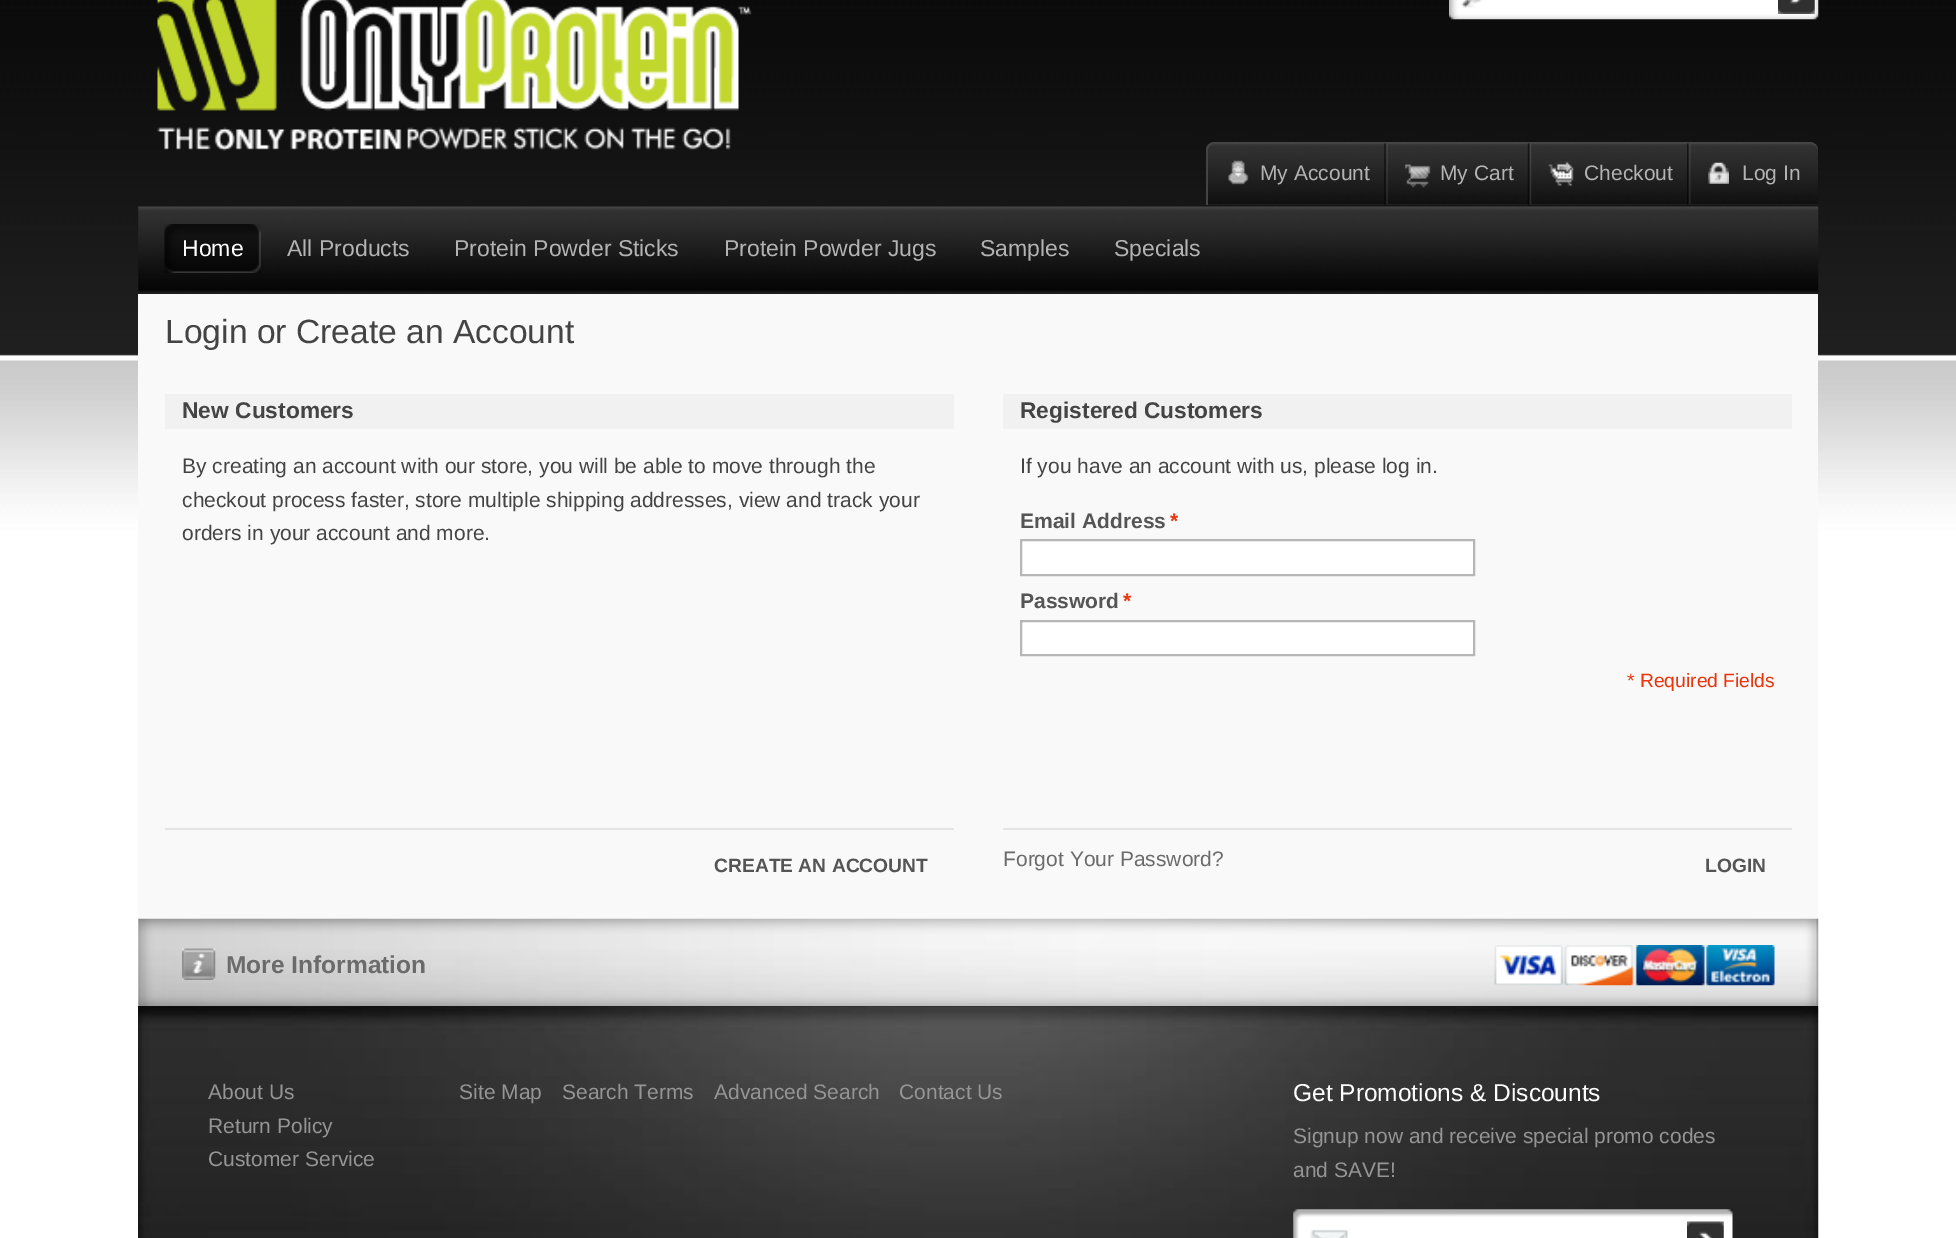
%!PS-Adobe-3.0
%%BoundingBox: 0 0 1956 1238
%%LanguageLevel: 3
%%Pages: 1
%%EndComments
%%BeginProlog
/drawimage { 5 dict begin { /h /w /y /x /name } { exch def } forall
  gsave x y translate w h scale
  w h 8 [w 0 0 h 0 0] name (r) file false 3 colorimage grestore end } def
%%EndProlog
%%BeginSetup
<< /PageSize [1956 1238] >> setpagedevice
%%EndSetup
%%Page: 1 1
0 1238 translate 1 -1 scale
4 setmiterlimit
1 setgray
0 0 1956 1238 rectfill
(images/1.raw) 0 0 1956 1238 drawimage
(images/2.raw) 157 0 595 151 drawimage
(images/3.raw) 1449 0 370 20 drawimage
(images/4.raw) 1778 0 37 14 drawimage
0.184 setgray
newpath 1214 144 moveto 1810 144 lineto 1814 144 1818 147 1818 150 curveto 1818 205 lineto 1208 205 lineto 1208 150 lineto 1208 147 1211 144 1214 144 curveto closepath fill
(images/5.raw) 1206 143 612 62 drawimage
0.271 0.267 0.271 setrgbcolor
newpath 1214 142 moveto 1810 142 lineto 1814 142 1818 146 1818 150 curveto 1818 205 lineto 1206 205 lineto 1206 150 lineto 1206 146 1210 142 1214 142 curveto closepath 1214 144 moveto 1810 144 lineto 1814 144 1818 147 1818 150 curveto 1818 205 lineto 1208 205 lineto 1208 150 lineto 1208 147 1211 144 1214 144 curveto closepath eofill
(images/6.raw) 1384 143 4 62 drawimage
(images/7.raw) 1228 160 21 25 drawimage
(images/8.raw) 1527 143 5 62 drawimage
(images/9.raw) 1405 164 26 24 drawimage
(images/10.raw) 1687 143 4 62 drawimage
(images/11.raw) 1548 161 26 25 drawimage
(images/12.raw) 1708 162 21 22 drawimage
(images/13.raw) 138 206 1681 86 drawimage
(images/14.raw) 164 224 56 49 drawimage
(images/15.raw) 220 224 41 49 drawimage
0.976 setgray
138 294 1680 625 rectfill
0.945 setgray
165 394 789 35 rectfill
1003 394 789 35 rectfill
1 setgray
newpath 1021 540 moveto 1474 540 lineto 1474 575 lineto 1021 575 lineto closepath gsave fill grestore
0.714 setgray
2 setlinewidth
stroke
1 setgray
newpath 1021 621 moveto 1474 621 lineto 1474 655 lineto 1021 655 lineto closepath gsave fill grestore
0.714 setgray
stroke
0.894 setgray
165 828 789 2 rectfill
1003 828 789 2 rectfill
(images/16.raw) 138 918 1681 89 drawimage
(images/17.raw) 182 948 34 32 drawimage
(images/18.raw) 1494 945 281 41 drawimage
0.086 0.086 0.09 setrgbcolor
138 1006 1680 232 rectfill
(images/19.raw) 138 1006 1681 232 drawimage
(images/20.raw) 1293 1209 440 29 drawimage
(images/21.raw) 1687 1221 37 17 drawimage
/LiberationSans-Regular [21 0 0 -21 0 0] selectfont
0.702 setgray
1260 180 moveto (My Account) show
1440 180 moveto (My Cart) show
1584 180 moveto (Checkout) show
1742 180 moveto (Log In) show
/LiberationSans-Regular [23 0 0 -23 0 0] selectfont
1 setgray
182 256 moveto (Home) show
0.702 setgray
287 256 moveto (All Products) show
454 256 moveto (Protein Powder Sticks) show
724 256 moveto (Protein Powder Jugs) show
980 256 moveto (Samples) show
1114 256 moveto (Specials) show
/LiberationSans-Regular [33.6 0 0 -33.6 0 0] selectfont
0.267 setgray
165 343 moveto (Login or Create an Account) show
/LiberationSans-Bold [22.75 0 0 -22.75 0 0] selectfont
182 418 moveto (New Customers) show
/LiberationSans-Regular [21 0 0 -21 0 0] selectfont
182 473 moveto (By creating an account with our store, you will be able to move through the) show
182 507 moveto (checkout process faster, store multiple shipping addresses, view and track your) show
182 540 moveto (orders in your account and more.) show
/LiberationSans-Bold [22.75 0 0 -22.75 0 0] selectfont
1020 418 moveto (Registered Customers) show
/LiberationSans-Regular [21 0 0 -21 0 0] selectfont
1020 473 moveto (If you have an account with us, please log in.) show
/LiberationSans-Bold [21 0 0 -21 0 0] selectfont
0.333 setgray
1020 528 moveto (Email Address) show
0.922 0.204 0.039 setrgbcolor
1170 528 moveto (*) show
0.333 setgray
1020 608 moveto (Password) show
0.922 0.204 0.039 setrgbcolor
1123 608 moveto (*) show
/LiberationSans-Regular [19.25 0 0 -19.25 0 0] selectfont
1627 687 moveto (* Required Fields) show
/LiberationSans-Bold [19.25 0 0 -19.25 0 0] selectfont
0.333 setgray
714 872 moveto (CREATE AN ACCOUNT) show
/LiberationSans-Regular [21 0 0 -21 0 0] selectfont
0.42 setgray
1003 866 moveto (Forgot Your Password?) show
/LiberationSans-Bold [19.25 0 0 -19.25 0 0] selectfont
0.333 setgray
1705 872 moveto (LOGIN) show
/LiberationSans-Bold [24.5 0 0 -24.5 0 0] selectfont
0.42 setgray
226 973 moveto (More Information) show
/LiberationSans-Regular [21 0 0 -21 0 0] selectfont
0.584 setgray
208 1099 moveto (About Us) show
208 1133 moveto (Return Policy) show
208 1166 moveto (Customer Service) show
459 1099 moveto (Site Map) show
562 1099 moveto (Search Terms) show
714 1099 moveto (Advanced Search) show
899 1099 moveto (Contact Us) show
/LiberationSans-Regular [24.5 0 0 -24.5 0 0] selectfont
1 setgray
1293 1101 moveto (Get Promotions & Discounts) show
/LiberationSans-Regular [21 0 0 -21 0 0] selectfont
0.584 setgray
1293 1143 moveto (Signup now and receive special promo codes) show
1293 1177 moveto (and SAVE!) show
showpage
%%EOF
